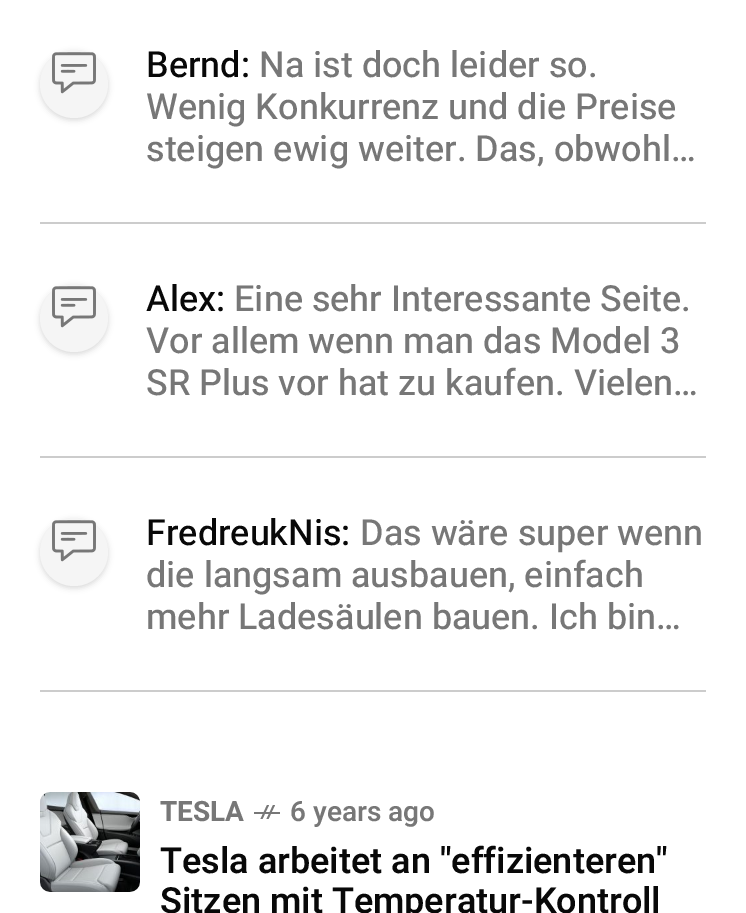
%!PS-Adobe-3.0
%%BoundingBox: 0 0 746 913
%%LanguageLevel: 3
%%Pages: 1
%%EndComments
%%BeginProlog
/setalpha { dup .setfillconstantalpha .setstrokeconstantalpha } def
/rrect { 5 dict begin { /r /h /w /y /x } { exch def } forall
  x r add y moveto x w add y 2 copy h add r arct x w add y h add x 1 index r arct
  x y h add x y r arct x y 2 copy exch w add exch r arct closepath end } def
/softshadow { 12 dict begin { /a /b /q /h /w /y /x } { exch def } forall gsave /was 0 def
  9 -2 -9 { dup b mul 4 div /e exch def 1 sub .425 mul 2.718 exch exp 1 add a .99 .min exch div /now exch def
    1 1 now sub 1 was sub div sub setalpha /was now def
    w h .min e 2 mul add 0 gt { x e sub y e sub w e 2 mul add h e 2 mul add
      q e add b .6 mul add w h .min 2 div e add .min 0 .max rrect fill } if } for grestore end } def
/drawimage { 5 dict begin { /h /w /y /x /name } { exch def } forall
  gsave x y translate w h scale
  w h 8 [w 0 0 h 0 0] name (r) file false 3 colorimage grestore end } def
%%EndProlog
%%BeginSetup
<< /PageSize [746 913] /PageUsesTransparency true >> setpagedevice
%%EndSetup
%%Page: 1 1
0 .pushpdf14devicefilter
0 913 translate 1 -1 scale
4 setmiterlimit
1 setgray
0 0 746 913 rectfill
0.8 setgray
40 222 666 2 rectfill
0 setgray
40 52 68 68 34 3 0.15 softshadow
0.961 setgray
newpath 74 84 34 0 360 arc closepath fill
(images/1.raw) 52 52 44 42 drawimage
0.8 setgray
40 456 666 2 rectfill
0 setgray
40 286 68 68 34 3 0.15 softshadow
0.961 setgray
newpath 74 318 34 0 360 arc closepath fill
(images/1.raw) 52 286 44 42 drawimage
0.8 setgray
40 690 666 2 rectfill
0 setgray
40 520 68 68 34 3 0.15 softshadow
0.961 setgray
newpath 74 552 34 0 360 arc closepath fill
(images/1.raw) 52 520 44 42 drawimage
(images/2.raw) 40 792 100 100 drawimage
0.467 setgray
254 812 26 2 rectfill
newpath 273 805 moveto 275 805 lineto 268.5 819 lineto 266.5 819 lineto closepath fill
newpath 267 805 moveto 269 805 lineto 262.5 819 lineto 260.5 819 lineto closepath fill
/Heebo-Medium [36 0 0 -36 0 0] selectfont
0.031 setgray
146 77 moveto (Bernd:) show
0.467 setgray
259 77 moveto (Na ist doch leider so.) show
146 119 moveto (Wenig Konkurrenz und die Preise) show
146 161 moveto (steigen ewig weiter. Das, obwohl…) show
0.031 setgray
146 311 moveto (Alex:) show
0.467 setgray
234 311 moveto (Eine sehr Interessante Seite.) show
146 353 moveto (Vor allem wenn man das Model 3) show
146 395 moveto (SR Plus vor hat zu kaufen. Vielen…) show
0.031 setgray
146 545 moveto (FredreukNis:) show
0.467 setgray
360 545 moveto (Das wäre super wenn) show
146 587 moveto (die langsam ausbauen, einfach) show
146 629 moveto (mehr Ladesäulen bauen. Ich bin…) show
/Heebo-Bold [28 0 0 -28 0 0] selectfont
160 821 moveto (TESLA) show
/Heebo-SemiBold [28 0 0 -28 0 0] selectfont
290 821 moveto (6 years ago) show
/Heebo-SemiBold [36 0 0 -36 0 0] selectfont
0.031 setgray
160 873 moveto (Tesla arbeitet an "effizienteren") show
160 913 moveto (Sitzen mit Temperatur-Kontroll) show
.poppdf14devicefilter showpage
%%EOF
